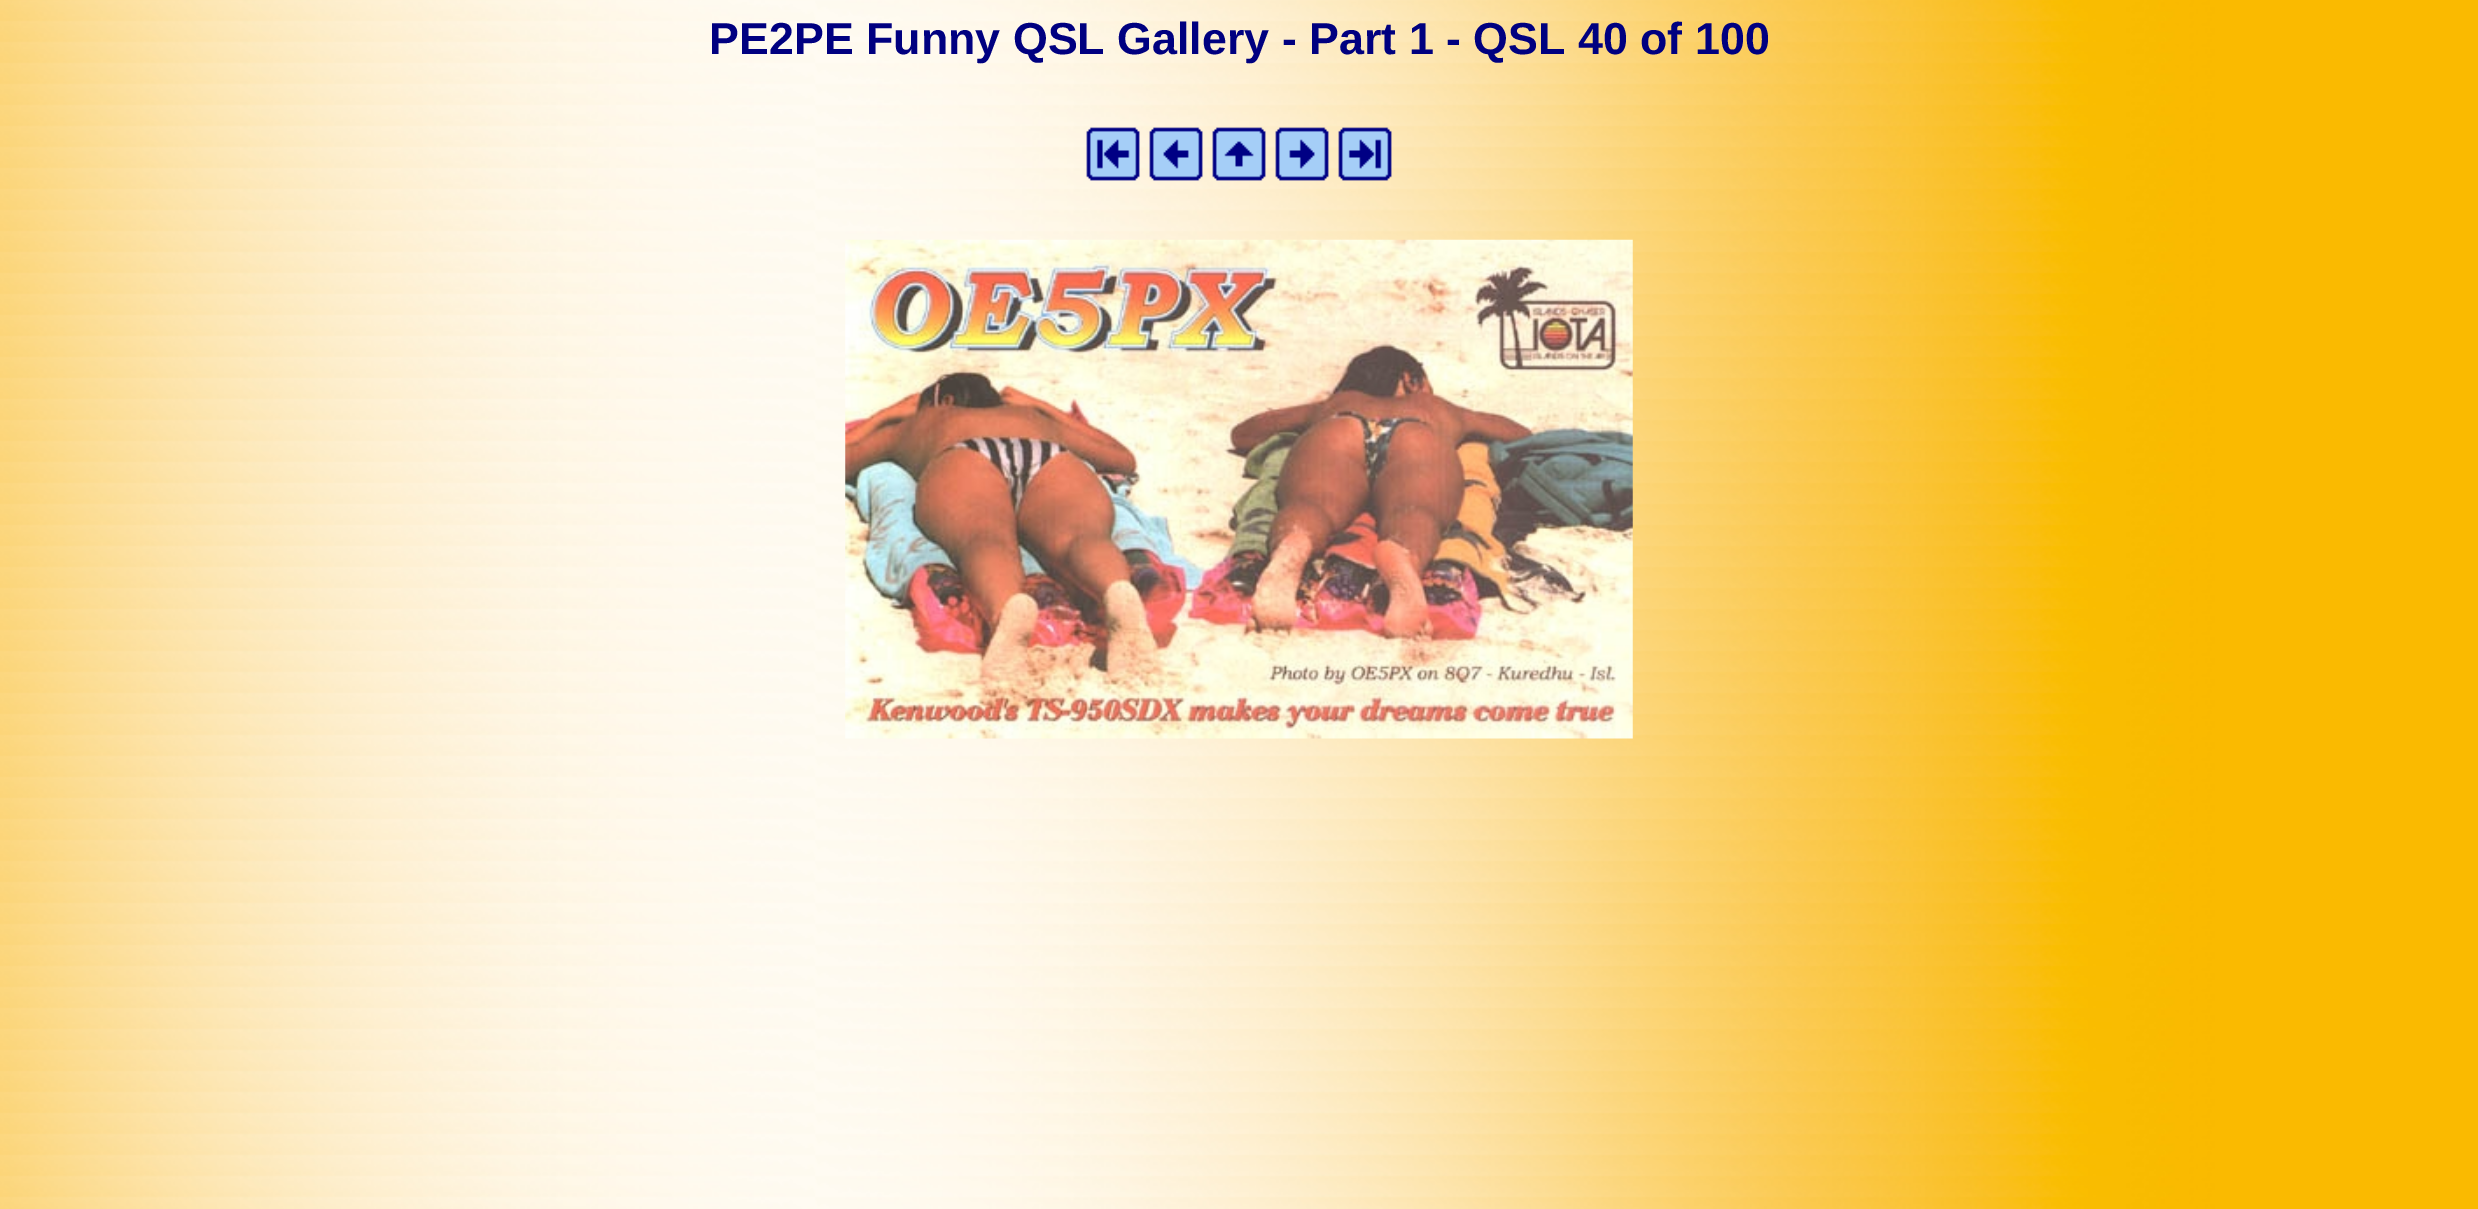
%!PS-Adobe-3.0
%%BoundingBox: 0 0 2478 1209
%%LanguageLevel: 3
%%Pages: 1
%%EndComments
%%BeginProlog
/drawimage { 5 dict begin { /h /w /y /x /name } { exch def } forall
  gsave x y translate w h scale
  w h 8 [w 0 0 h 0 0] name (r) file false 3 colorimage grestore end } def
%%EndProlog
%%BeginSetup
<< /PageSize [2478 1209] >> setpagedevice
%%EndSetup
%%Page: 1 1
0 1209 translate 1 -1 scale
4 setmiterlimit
1 setgray
0 0 2478 1209 rectfill
(images/1.raw) 0 0 2478 1209 drawimage
(images/2.raw) 1086 127 54 54 drawimage
(images/3.raw) 1149 127 54 54 drawimage
(images/4.raw) 1212 127 54 54 drawimage
(images/5.raw) 1275 127 54 54 drawimage
(images/6.raw) 1338 127 54 54 drawimage
(images/7.raw) 845 239 788 500 drawimage
/LiberationSans-Bold [44.8 0 0 -44.8 0 0] selectfont
0 0 0.502 setrgbcolor
709 54 moveto (PE2PE Funny QSL Gallery - Part 1 - QSL 40 of 100) show
showpage
%%EOF
